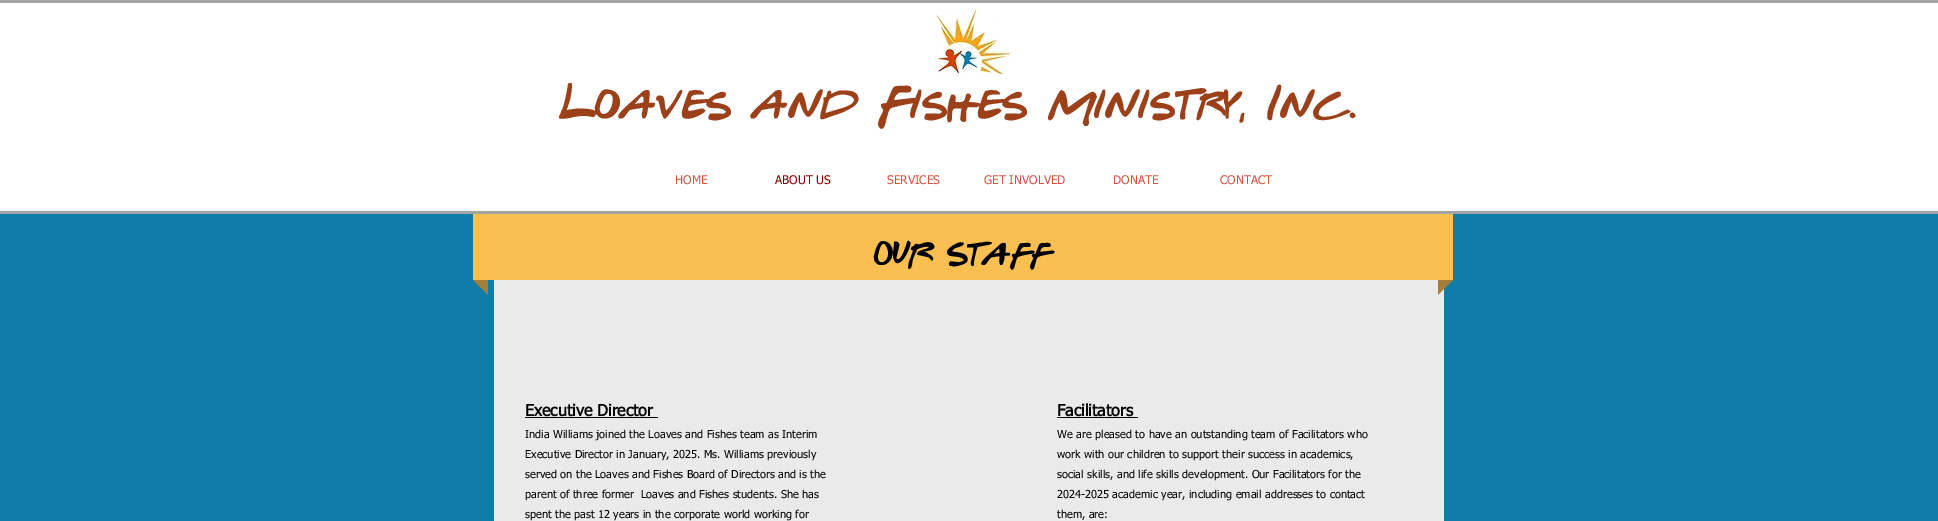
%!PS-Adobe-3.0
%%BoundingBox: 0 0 1938 521
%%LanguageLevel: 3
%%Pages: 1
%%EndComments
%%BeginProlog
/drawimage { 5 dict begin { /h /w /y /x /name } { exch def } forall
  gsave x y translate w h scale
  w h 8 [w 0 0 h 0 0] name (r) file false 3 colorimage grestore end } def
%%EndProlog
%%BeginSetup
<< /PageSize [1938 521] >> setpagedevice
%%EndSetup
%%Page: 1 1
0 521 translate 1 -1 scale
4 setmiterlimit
0.063 0.486 0.655 setrgbcolor
0 0 1938 521 rectfill
1 setgray
0 3 1938 208 rectfill
(images/1.raw) 935 8 75 68 drawimage
0.643 setgray
0 0 1938 3 rectfill
0 211 1938 3 rectfill
0.976 0.749 0.318 setrgbcolor
473 214 980 66 rectfill
0.643 0.494 0.212 setrgbcolor
newpath 473 280 moveto 488 280 lineto 488 295 lineto closepath fill
0.918 setgray
494 280 950 241 rectfill
0.643 0.494 0.212 setrgbcolor
newpath 1438 280 moveto 1453 280 lineto 1438 295 lineto closepath fill
0 setgray
525 417 133 1 rectfill
1057 417 81 1 rectfill
/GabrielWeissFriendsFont-Regular [45 0 0 -45 0 0] selectfont
0.612 0.251 0.098 setrgbcolor
559 118 moveto (Loaves and Fishes Ministry, Inc.) show
/tahoma-Regular [12 0 0 -12 0 0] selectfont
0.835 0.325 0.259 setrgbcolor
675 184 moveto (HOME) show
0.545 0 0 setrgbcolor
775 184 moveto (ABOUT US) show
0.835 0.325 0.259 setrgbcolor
887 184 moveto (SERVICES) show
984 184 moveto (GET INVOLVED) show
1113 184 moveto (DONATE) show
1220 184 moveto (CONTACT) show
/GabrielWeissFriendsFont-Regular [28 0 0 -28 0 0] selectfont
0 setgray
874 263 moveto (OUR STAFF) show
/tahoma-Bold [16 0 0 -16 0 0] selectfont
525 416 moveto (Executive Director) show
/tahoma-Regular [11 0 0 -11 0 0] selectfont
525 438 moveto (India Williams joined the Loaves and Fishes team as Interim) show
525 458 moveto (Executive Director in January, 2025. Ms. Williams previously) show
525 478 moveto (served on the Loaves and Fishes Board of Directors and is the) show
525 498 moveto (parent of three former  Loaves and Fishes students. She has) show
525 518 moveto (spent the past 12 years in the corporate world working for) show
/tahoma-Bold [16 0 0 -16 0 0] selectfont
1057 416 moveto (Facilitators) show
/tahoma-Regular [11 0 0 -11 0 0] selectfont
1057 438 moveto (We are pleased to have an outstanding team of Facilitators who) show
1057 458 moveto (work with our children to support their success in academics,) show
1057 478 moveto (social skills, and life skills development. Our Facilitators for the) show
1057 498 moveto (2024-2025 academic year, including email addresses to contact) show
1057 518 moveto (them, are:) show
showpage
%%EOF
